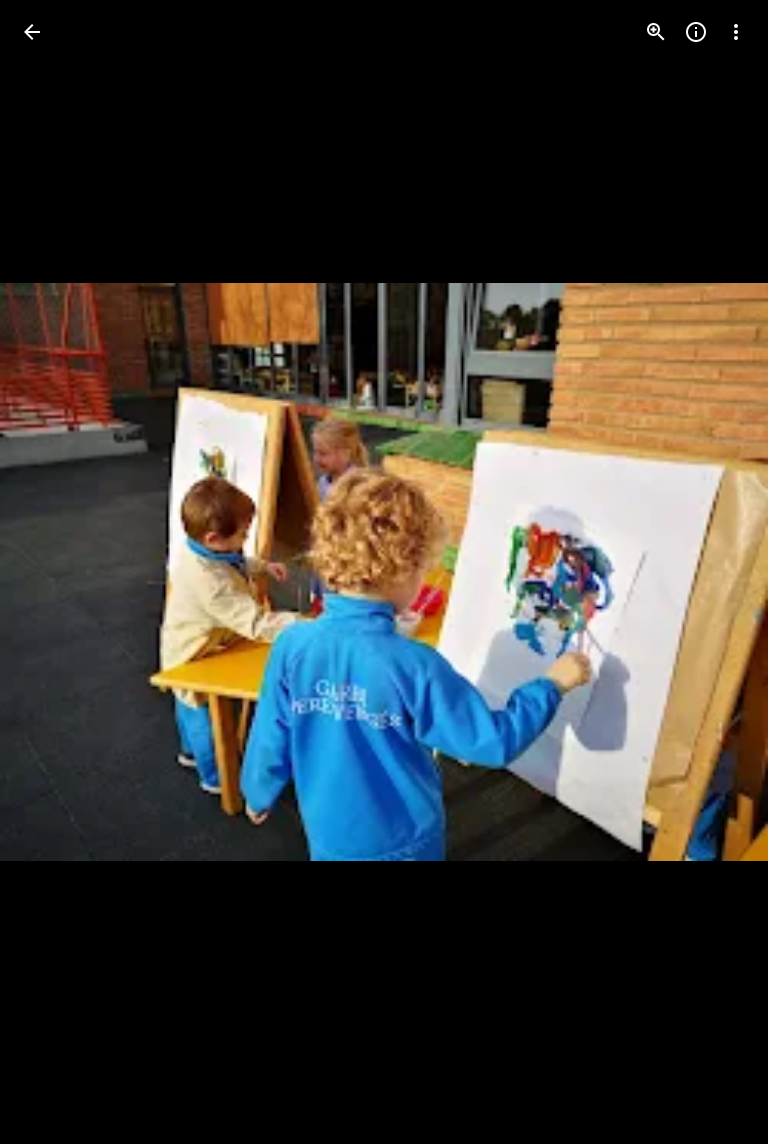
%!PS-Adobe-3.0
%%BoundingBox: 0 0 768 1144
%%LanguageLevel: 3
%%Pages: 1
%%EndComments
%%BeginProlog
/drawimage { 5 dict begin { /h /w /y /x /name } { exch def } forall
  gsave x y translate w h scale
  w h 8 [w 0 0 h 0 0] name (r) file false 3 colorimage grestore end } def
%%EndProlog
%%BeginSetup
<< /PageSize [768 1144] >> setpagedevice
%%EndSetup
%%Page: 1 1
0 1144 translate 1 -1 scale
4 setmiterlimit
0 setgray
0 0 768 1144 rectfill
(images/1.raw) 24 24 16 16 drawimage
(images/2.raw) 647 23 18 18 drawimage
(images/3.raw) 686 22 20 20 drawimage
(images/4.raw) 734 24 4 16 drawimage
(images/5.raw) 0 283 768 578 drawimage
showpage
%%EOF
